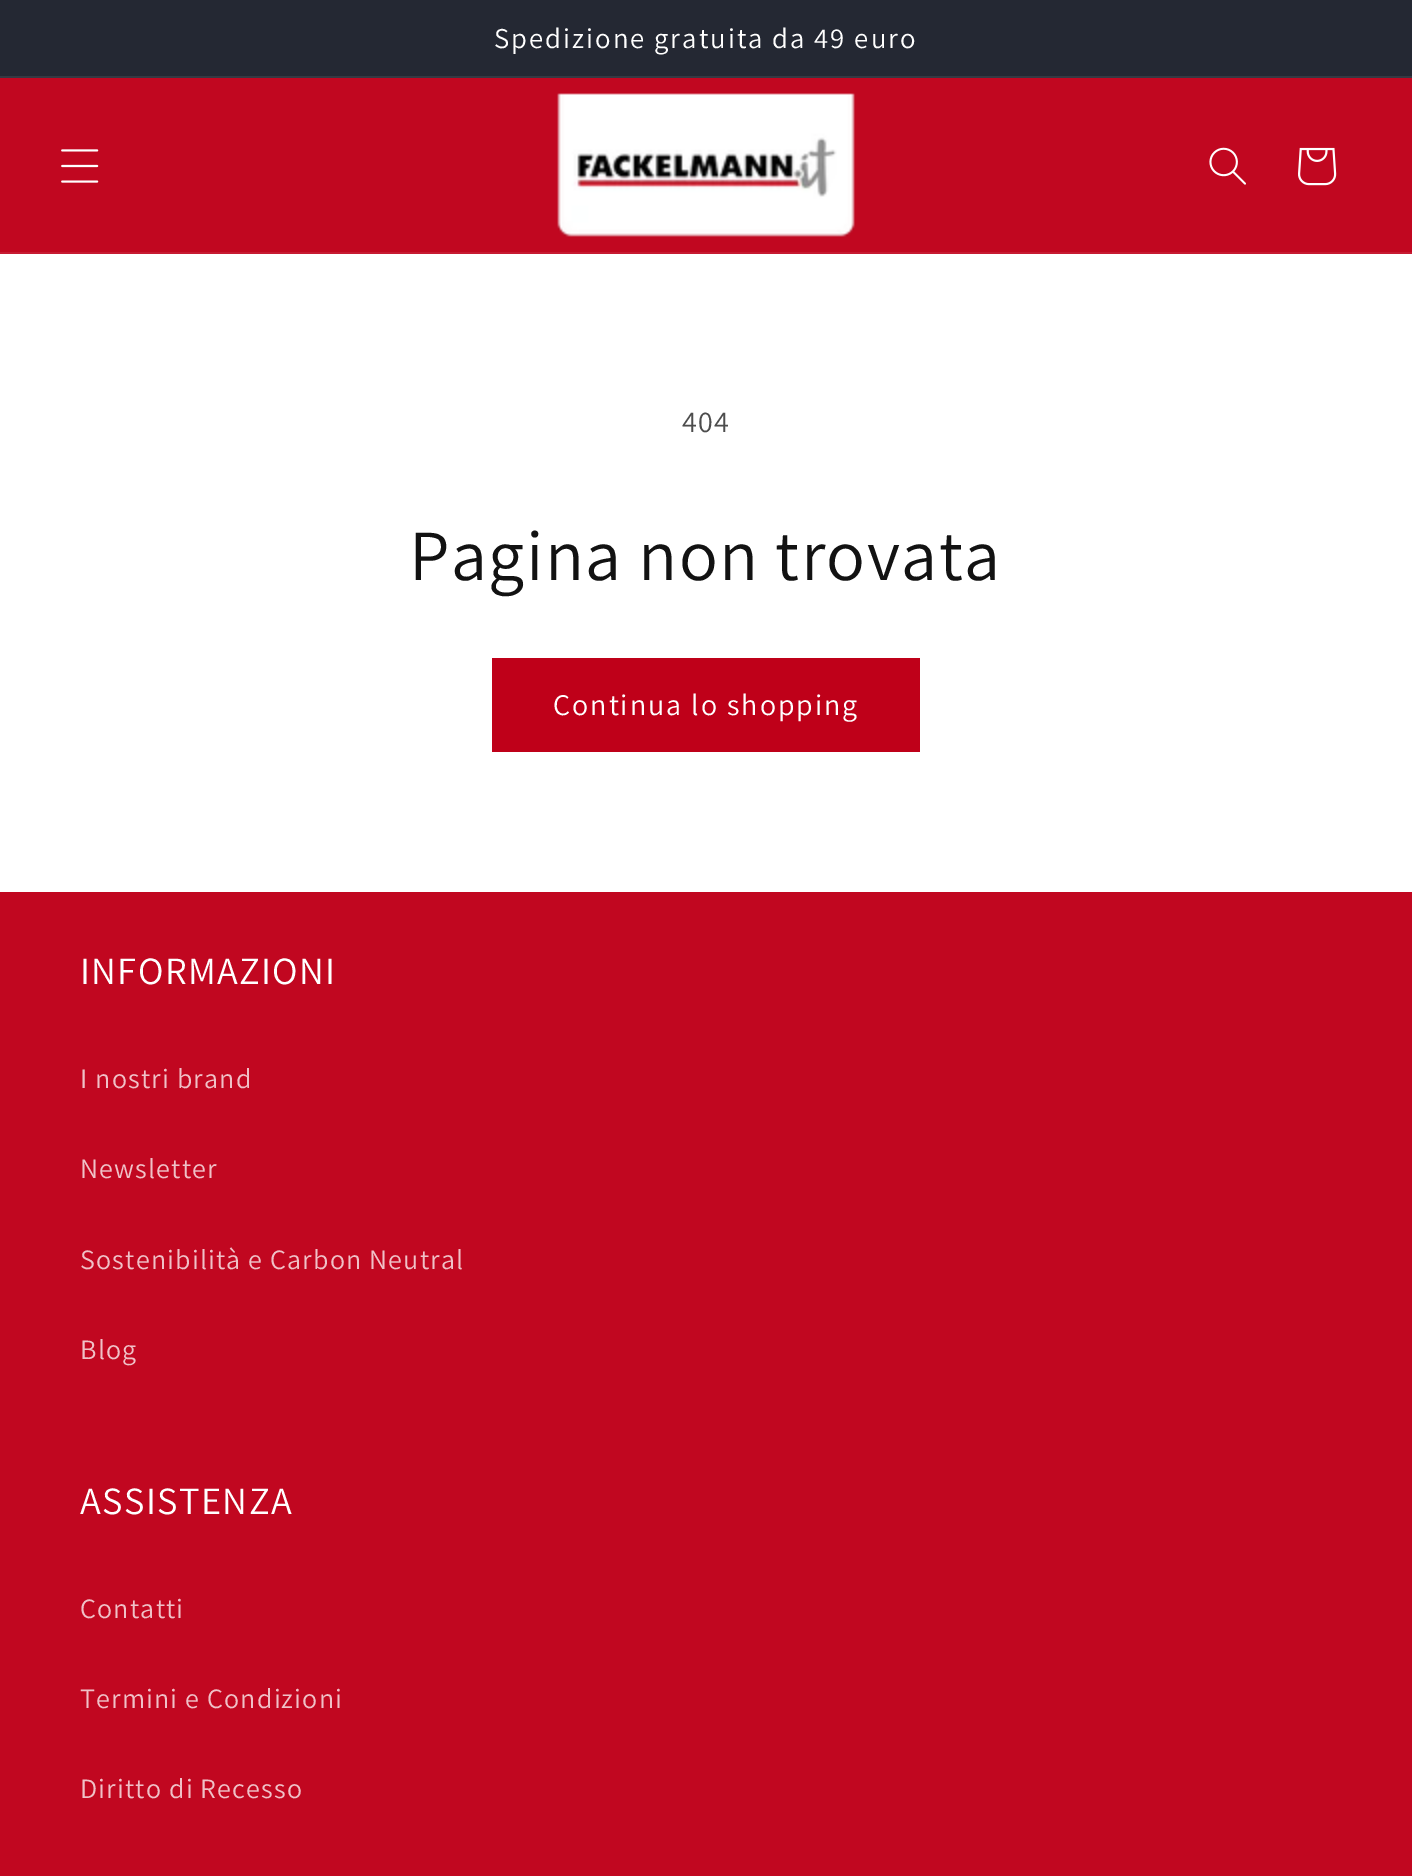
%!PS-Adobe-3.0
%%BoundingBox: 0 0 1412 1876
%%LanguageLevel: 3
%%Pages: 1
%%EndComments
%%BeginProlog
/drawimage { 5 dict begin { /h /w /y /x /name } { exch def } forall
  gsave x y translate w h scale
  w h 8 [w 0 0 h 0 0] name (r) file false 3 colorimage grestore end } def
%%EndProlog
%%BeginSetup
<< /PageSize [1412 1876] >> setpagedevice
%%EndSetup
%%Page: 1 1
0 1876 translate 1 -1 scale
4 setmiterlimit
1 setgray
0 0 1412 1876 rectfill
0.141 0.157 0.2 setrgbcolor
0 0 1412 76 rectfill
0.212 0.224 0.263 setrgbcolor
0 76 1412 2 rectfill
0.757 0.027 0.125 setrgbcolor
0 78 1412 174 rectfill
0.776 0.106 0.196 setrgbcolor
0 252 1412 2 rectfill
(images/1.raw) 61 149 38 34 drawimage
(images/2.raw) 557 93 298 144 drawimage
(images/3.raw) 1209 147 37 38 drawimage
(images/4.raw) 1298 147 39 39 drawimage
0.749 0 0.098 setrgbcolor
492 658 428 94 rectfill
0.757 0.027 0.125 setrgbcolor
0 892 1412 984 rectfill
/Assistant-Regular [28.75 0 0 -28.75 0 0] selectfont
1 setgray
494 48 moveto 2 0 (Spedizione gratuita da 49 euro) ashow
/Assistant-Regular [30 0 0 -30 0 0] selectfont
0.302 setgray
682 432 moveto 1.2 0 (404) ashow
/Assistant-Regular [72 0 0 -72 0 0] selectfont
0.071 setgray
409 580 moveto 1.4 0 (Pagina non trovata) ashow
/Assistant-Regular [30 0 0 -30 0 0] selectfont
1 setgray
553 715 moveto 2 0 (Continua lo shopping) ashow
/Assistant-Regular [38.5 0 0 -38.5 0 0] selectfont
80 984 moveto 1.4 0 (INFORMAZIONI) ashow
/Assistant-Regular [28 0 0 -28 0 0] selectfont
0.941 0.757 0.78 setrgbcolor
80 1088 moveto 1.2 0 (I nostri brand) ashow
80 1178 moveto 1.2 0 (Newsletter) ashow
80 1269 moveto 1.2 0 (Sostenibilità e Carbon Neutral) ashow
80 1359 moveto 1.2 0 (Blog) ashow
/Assistant-Regular [38.5 0 0 -38.5 0 0] selectfont
1 setgray
80 1514 moveto 1.4 0 (ASSISTENZA) ashow
/Assistant-Regular [28 0 0 -28 0 0] selectfont
0.941 0.757 0.78 setrgbcolor
80 1618 moveto 1.2 0 (Contatti) ashow
80 1708 moveto 1.2 0 (Termini e Condizioni) ashow
80 1798 moveto 1.2 0 (Diritto di Recesso) ashow
showpage
%%EOF
